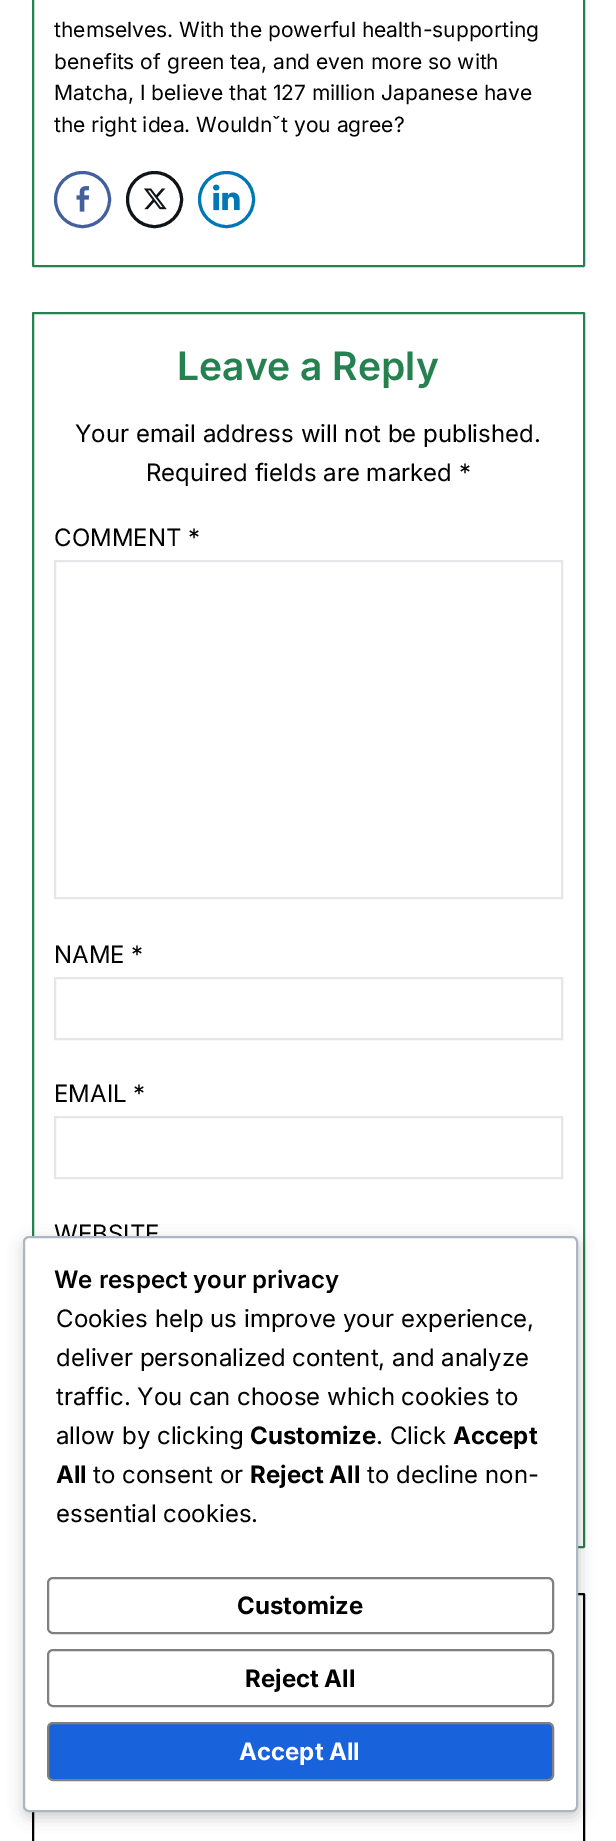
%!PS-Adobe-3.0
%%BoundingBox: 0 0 616 1841
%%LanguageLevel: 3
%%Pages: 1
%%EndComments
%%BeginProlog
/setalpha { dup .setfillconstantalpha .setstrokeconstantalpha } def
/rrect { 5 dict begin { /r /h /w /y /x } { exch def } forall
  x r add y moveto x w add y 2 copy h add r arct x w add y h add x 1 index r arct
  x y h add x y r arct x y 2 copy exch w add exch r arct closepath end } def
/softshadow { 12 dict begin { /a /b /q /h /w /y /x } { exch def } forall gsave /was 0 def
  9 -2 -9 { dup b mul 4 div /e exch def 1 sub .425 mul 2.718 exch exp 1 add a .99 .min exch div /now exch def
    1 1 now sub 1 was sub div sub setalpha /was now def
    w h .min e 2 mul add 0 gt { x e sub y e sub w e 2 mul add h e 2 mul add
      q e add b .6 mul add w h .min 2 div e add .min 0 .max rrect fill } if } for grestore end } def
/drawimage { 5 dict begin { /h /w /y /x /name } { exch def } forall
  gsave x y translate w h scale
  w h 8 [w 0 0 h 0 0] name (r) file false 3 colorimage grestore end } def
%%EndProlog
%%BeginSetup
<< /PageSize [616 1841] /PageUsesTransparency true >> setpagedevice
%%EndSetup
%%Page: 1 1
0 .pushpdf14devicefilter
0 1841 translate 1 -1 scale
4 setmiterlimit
1 setgray
0 0 616 1841 rectfill
0.145 0.51 0.314 setrgbcolor
2 setlinewidth
33 -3 551 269 0.5 rrect stroke
0.263 0.376 0.612 setrgbcolor
3 setlinewidth
newpath 82.5 199.5 27 0 360 arc closepath stroke
(images/1.raw) 76 186 14 26 drawimage
0.059 0.078 0.098 setrgbcolor
newpath 154.5 199.5 27 0 360 arc closepath stroke
(images/2.raw) 144 188 23 22 drawimage
0 0.467 0.71 setrgbcolor
newpath 226.5 199.5 27 0 360 arc closepath stroke
(images/3.raw) 213 184 27 27 drawimage
0.145 0.51 0.314 setrgbcolor
2 setlinewidth
33 313 551 1234 0.5 rrect stroke
0.898 0.902 0.914 setrgbcolor
55 561 507 337 rectstroke
55 978 507 61 rectstroke
55 1117 507 61 rectstroke
0 setgray
33 1594 551 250 0.5 rrect stroke
24 1241 555 576 6 7.5 0.2 softshadow
/Inter-Regular [21 0 0 -21 0 0] selectfont
54 37 moveto (themselves. With the powerful health-supporting) show
54 69 moveto (benefits of green tea, and even more so with) show
54 100 moveto (Matcha, I believe that 127 million Japanese have) show
54 132 moveto (the right idea. Wouldnˇt you agree?) show
/Inter-SemiBold [39 0 0 -39 0 0] selectfont
0.145 0.51 0.314 setrgbcolor
177 380 moveto (Leave a Reply) show
/Inter-Regular [24 0 0 -24 0 0] selectfont
0 setgray
75 442 moveto (Your email address will not be published.) show
146 481 moveto (Required fields are marked *) show
54 546 moveto (COMMENT *) show
54 963 moveto (NAME *) show
54 1102 moveto (EMAIL *) show
54 1242 moveto (WEBSITE) show
1 setgray
24 1237 553 574 5 rrect gsave fill grestore
0.671 0.722 0.765 setrgbcolor
stroke
/Inter-SemiBold [24 0 0 -24 0 0] selectfont
0 setgray
54 1288 moveto (We respect your privacy) show
/Inter-Regular [24 0 0 -24 0 0] selectfont
56 1327 moveto (Cookies help us improve your experience,) show
56 1366 moveto (deliver personalized content, and analyze) show
56 1405 moveto (traffic. You can choose which cookies to) show
56 1444 moveto (allow by clicking) show
/Inter-Bold [24 0 0 -24 0 0] selectfont
250 1444 moveto (Customize) show
/Inter-Regular [24 0 0 -24 0 0] selectfont
376 1444 moveto (. Click) show
/Inter-Bold [24 0 0 -24 0 0] selectfont
453 1444 moveto (Accept) show
56 1483 moveto (All) show
/Inter-Regular [24 0 0 -24 0 0] selectfont
93 1483 moveto (to consent or) show
/Inter-Bold [24 0 0 -24 0 0] selectfont
250 1483 moveto (Reject All) show
/Inter-Regular [24 0 0 -24 0 0] selectfont
367 1483 moveto (to decline non-) show
56 1522 moveto (essential cookies.) show
0.502 setgray
48 1578 505 55 5 rrect stroke
/Inter-Bold [24 0 0 -24 0 0] selectfont
0 setgray
237 1614 moveto (Customize) show
0.502 setgray
48 1650 505 56 5 rrect stroke
0 setgray
245 1687 moveto (Reject All) show
0.094 0.388 0.863 setrgbcolor
48 1723 505 57 5 rrect gsave fill grestore
0.502 setgray
stroke
1 setgray
239 1760 moveto (Accept All) show
.poppdf14devicefilter showpage
%%EOF
